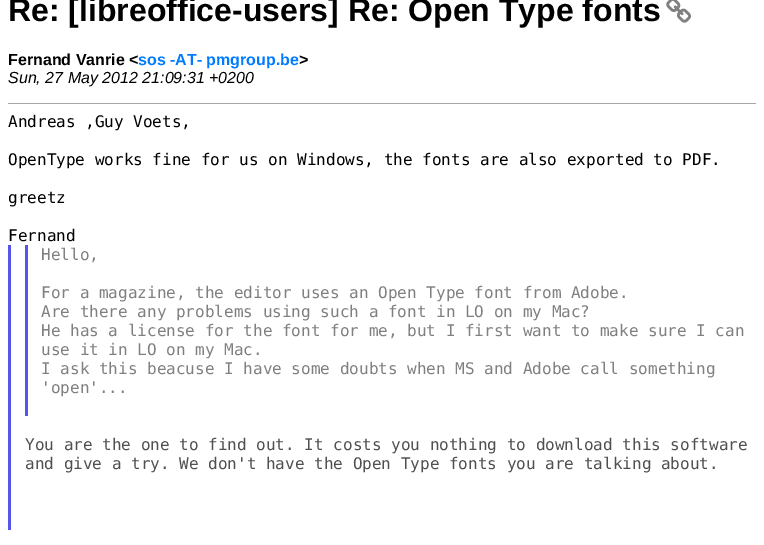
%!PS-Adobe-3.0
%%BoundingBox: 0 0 764 545
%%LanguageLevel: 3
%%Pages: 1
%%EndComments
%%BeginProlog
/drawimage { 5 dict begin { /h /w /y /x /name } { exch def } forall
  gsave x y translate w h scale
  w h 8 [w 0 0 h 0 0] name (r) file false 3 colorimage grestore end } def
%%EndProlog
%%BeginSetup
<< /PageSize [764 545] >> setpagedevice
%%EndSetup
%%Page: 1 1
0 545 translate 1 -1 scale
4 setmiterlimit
1 setgray
0 0 764 545 rectfill
(images/1.raw) 666 0 25 23 drawimage
0.651 setgray
8 103 748 1 rectfill
0.333 0.333 0.933 setrgbcolor
8 245 3 285 rectfill
25 245 3 171 rectfill
/LiberationSans-Bold [32 0 0 -32 0 0] selectfont
0 setgray
8 21 moveto (Re: [libreoffice-users] Re: Open Type fonts) show
/LiberationSans-Bold [16 0 0 -16 0 0] selectfont
8 65 moveto (Fernand Vanrie <) show
0 0.482 1 setrgbcolor
138 65 moveto (sos -AT- pmgroup.be) show
0 setgray
299 65 moveto (>) show
/LiberationSans-Italic [16 0 0 -16 0 0] selectfont
8 83 moveto (Sun, 27 May 2012 21:09:31 +0200) show
/DejaVuSansMono-Regular [16 0 0 -16 0 0] selectfont
8 127 moveto (Andreas ,Guy Voets,) show
8 165 moveto (OpenType works fine for us on Windows, the fonts are also exported to PDF.) show
8 203 moveto (greetz) show
8 241 moveto (Fernand) show
0.502 setgray
41 260 moveto (Hello,) show
41 298 moveto (For a magazine, the editor uses an Open Type font from Adobe.) show
41 317 moveto (Are there any problems using such a font in LO on my Mac?) show
41 336 moveto (He has a license for the font for me, but I first want to make sure I can) show
41 355 moveto (use it in LO on my Mac.) show
41 374 moveto (I ask this beacuse I have some doubts when MS and Adobe call something) show
41 393 moveto ('open'...) show
0.314 setgray
25 450 moveto (You are the one to find out. It costs you nothing to download this software) show
25 469 moveto (and give a try. We don't have the Open Type fonts you are talking about.) show
showpage
%%EOF
